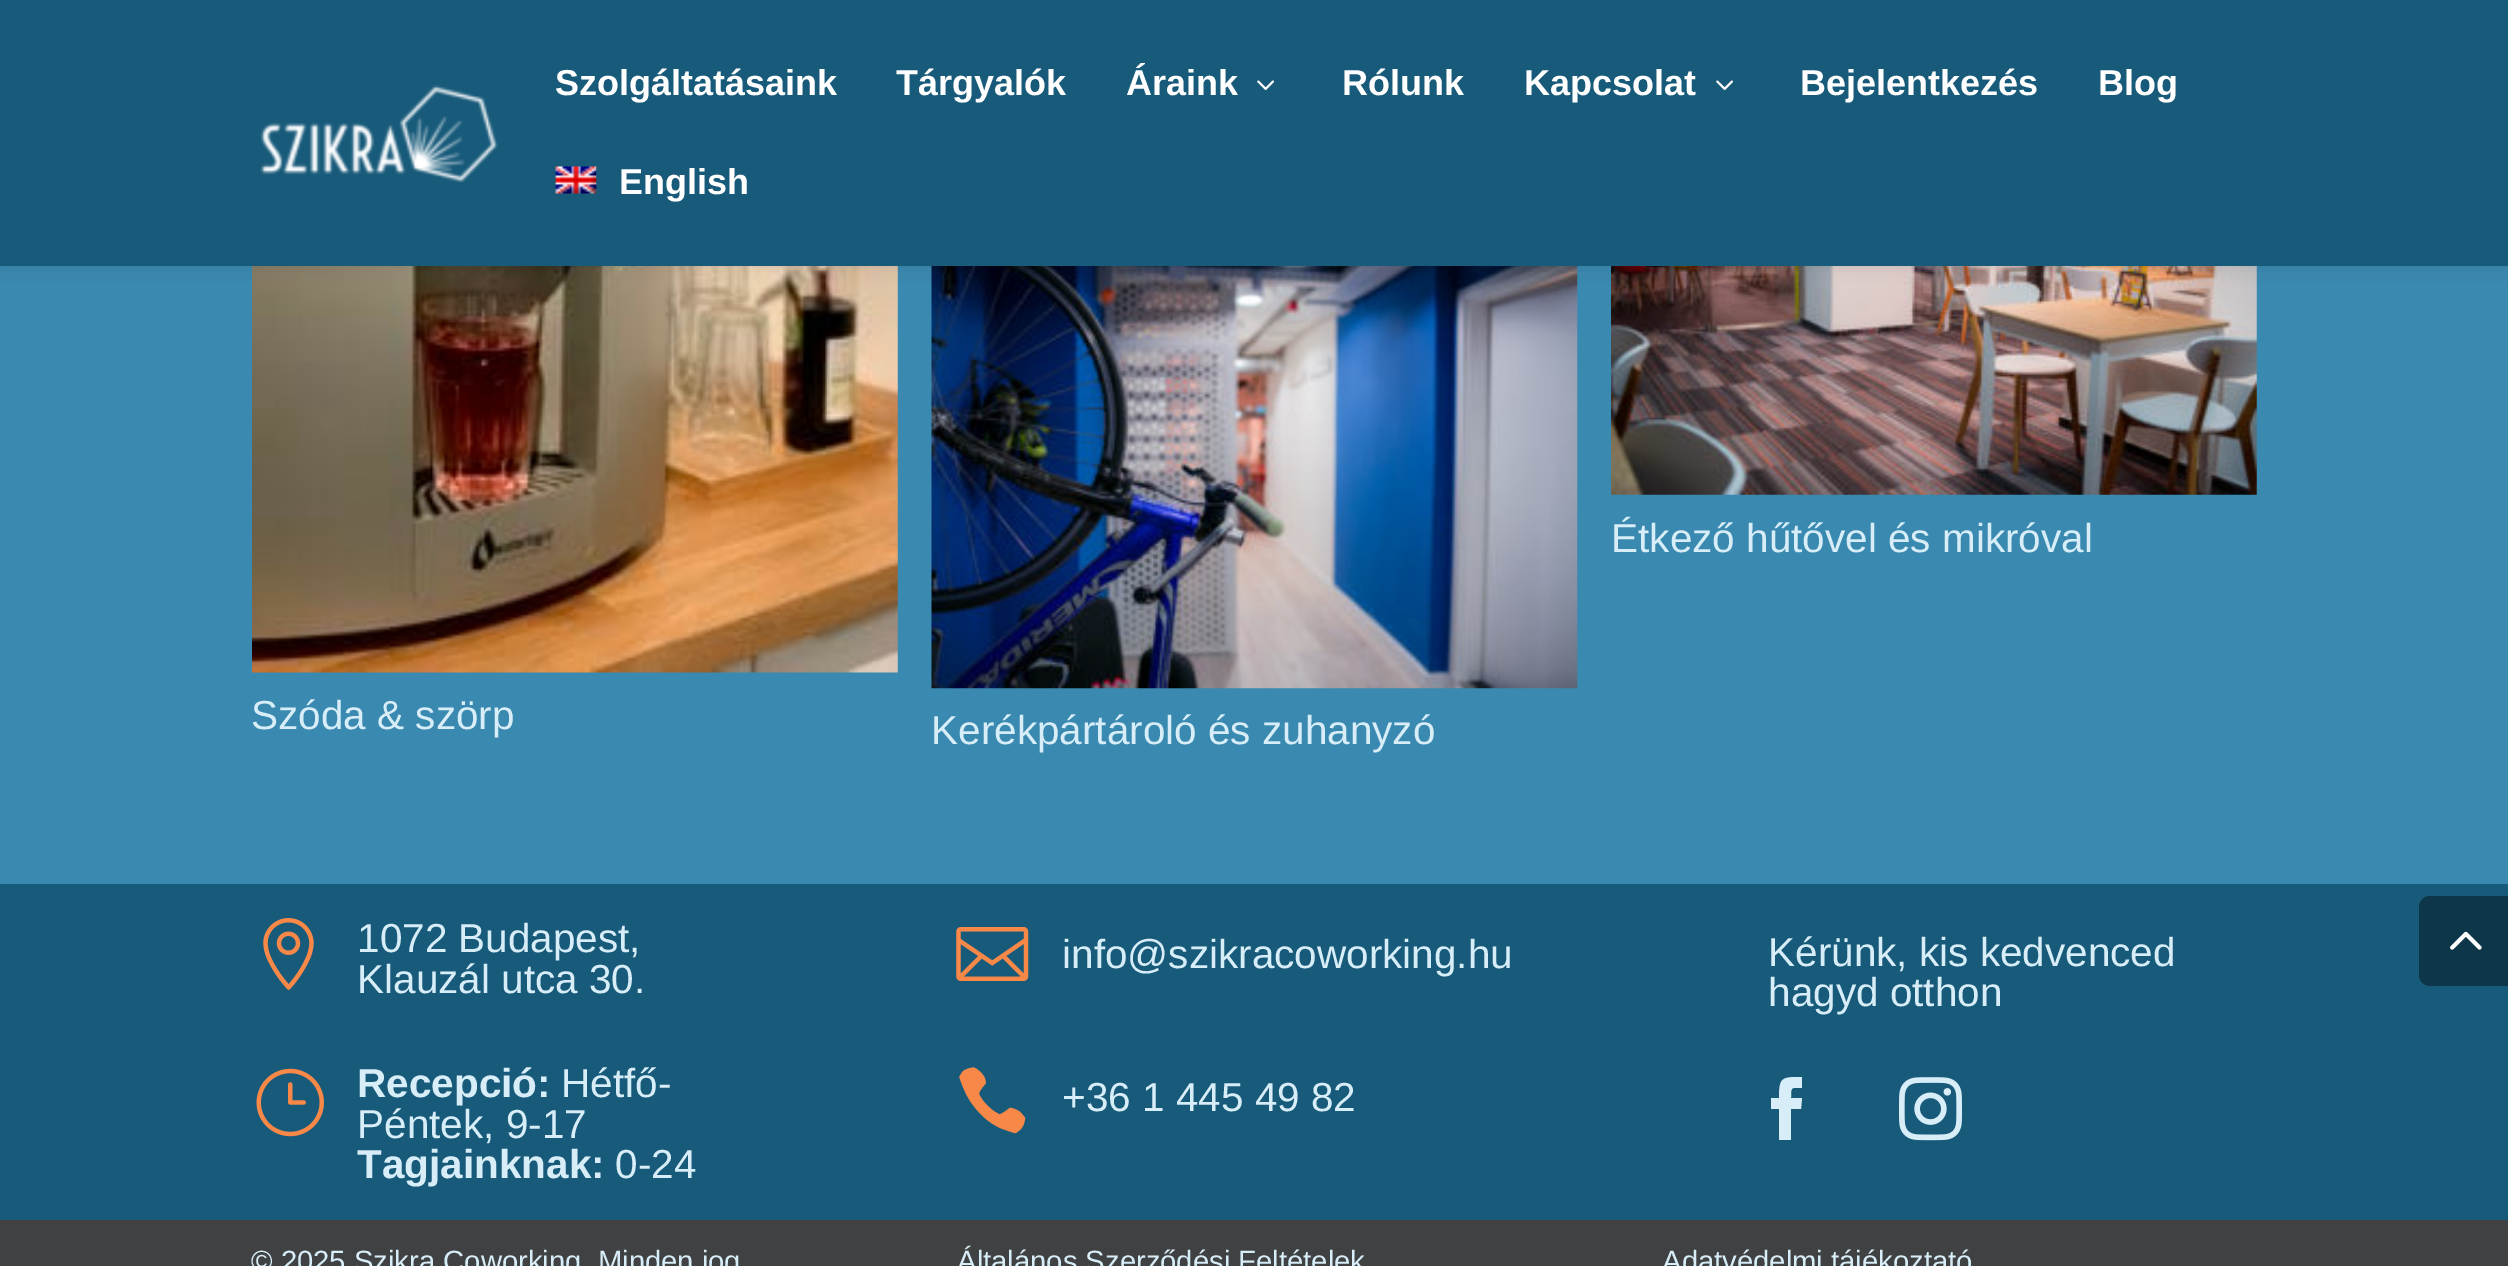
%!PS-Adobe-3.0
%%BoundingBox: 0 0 2508 1266
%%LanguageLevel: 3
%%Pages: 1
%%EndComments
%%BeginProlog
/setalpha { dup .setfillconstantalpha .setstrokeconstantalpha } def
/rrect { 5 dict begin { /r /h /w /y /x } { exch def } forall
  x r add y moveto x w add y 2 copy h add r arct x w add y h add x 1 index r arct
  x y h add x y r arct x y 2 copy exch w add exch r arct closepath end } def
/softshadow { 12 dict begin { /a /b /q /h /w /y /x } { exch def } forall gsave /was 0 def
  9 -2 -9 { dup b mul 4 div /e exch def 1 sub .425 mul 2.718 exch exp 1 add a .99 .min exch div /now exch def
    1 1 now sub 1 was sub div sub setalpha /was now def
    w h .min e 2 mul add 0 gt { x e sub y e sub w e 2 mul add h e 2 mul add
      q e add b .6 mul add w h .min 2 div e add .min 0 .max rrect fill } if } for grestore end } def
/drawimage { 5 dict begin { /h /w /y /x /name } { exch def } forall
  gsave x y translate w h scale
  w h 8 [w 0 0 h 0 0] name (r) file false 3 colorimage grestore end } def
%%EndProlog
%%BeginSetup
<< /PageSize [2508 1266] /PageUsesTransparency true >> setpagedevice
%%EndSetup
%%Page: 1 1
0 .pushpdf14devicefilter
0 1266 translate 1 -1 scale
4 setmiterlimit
0.227 0.537 0.69 setrgbcolor
0 0 2508 1266 rectfill
(images/4.raw) 1611 266 646 229 drawimage
(images/5.raw) 252 266 646 407 drawimage
(images/6.raw) 931 266 647 423 drawimage
0 setgray
0 0 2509 266 0 8 0.1 softshadow
0.094 0.353 0.478 setrgbcolor
0 0 2508 266 rectfill
(images/1.raw) 260 85 238 98 drawimage
(images/2.raw) 1257 80 17 10 drawimage
(images/2.raw) 1716 80 17 10 drawimage
(images/3.raw) 555 166 42 28 drawimage
0 884 2508 336 rectfill
(images/7.raw) 263 918 51 72 drawimage
(images/8.raw) 256 1068 68 69 drawimage
(images/9.raw) 956 927 73 54 drawimage
(images/10.raw) 959 1067 67 67 drawimage
0.843 0.929 0.969 setrgbcolor
newpath 1779 1140 moveto 1791 1140 lineto 1791 1109 lineto 1801 1109 lineto 1802 1098 lineto 1791 1098 lineto 1791 1086 1791 1088 1802 1088 curveto 1802 1077 lineto 1782 1077 1779 1077 1779 1098 curveto 1771 1098 lineto 1771 1109 lineto 1779 1109 lineto closepath fill
(images/11.raw) 1899 1077 63 64 drawimage
0.251 0.255 0.259 setrgbcolor
0 1220 2508 46 rectfill
0.055 0.212 0.286 setrgbcolor
newpath 2430 896 moveto 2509 896 lineto 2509 986 lineto 2430 986 lineto 2424 986 2419 981 2419 975 curveto 2419 907 lineto 2419 901 2424 896 2430 896 curveto closepath fill
(images/12.raw) 2450 931 32 19 drawimage
/LiberationSans-Bold [36 0 0 -36 0 0] selectfont
1 setgray
555 95 moveto (Szolgáltatásaink) show
896 95 moveto (Tárgyalók) show
1126 95 moveto (Áraink) show
1342 95 moveto (Rólunk) show
1524 95 moveto (Kapcsolat) show
1800 95 moveto (Bejelentkezés) show
2098 95 moveto (Blog) show
619 194 moveto (English) show
/LiberationSans-Regular [40.5 0 0 -40.5 0 0] selectfont
0.843 0.929 0.969 setrgbcolor
1611 552 moveto (Étkező hűtővel és mikróval) show
251 729 moveto (Szóda & szörp) show
931 744 moveto (Kerékpártároló és zuhanyzó) show
357 952 moveto (1072 Budapest,) show
357 993 moveto (Klauzál utca 30.) show
/LiberationSans-Bold [40.5 0 0 -40.5 0 0] selectfont
357 1097 moveto (Recepció:) show
/LiberationSans-Regular [40.5 0 0 -40.5 0 0] selectfont
561 1097 moveto (Hétfő-) show
357 1138 moveto (Péntek, 9-17) show
/LiberationSans-Bold [40.5 0 0 -40.5 0 0] selectfont
357 1178 moveto (Tagjainknak:) show
/LiberationSans-Regular [40.5 0 0 -40.5 0 0] selectfont
615 1178 moveto (0-24) show
1062 968 moveto (info@szikracoworking.hu) show
1062 1111 moveto (+36 1 445 49 82) show
1768 966 moveto (Kérünk, kis kedvenced) show
1768 1006 moveto (hagyd otthon) show
/LiberationSans-Regular [29.25 0 0 -29.25 0 0] selectfont
251 1271 moveto (© 2025 Szikra Coworking. Minden jog) show
957 1271 moveto (Általános Szerződési Feltételek) show
1662 1271 moveto (Adatvédelmi tájékoztató) show
.poppdf14devicefilter showpage
%%EOF
